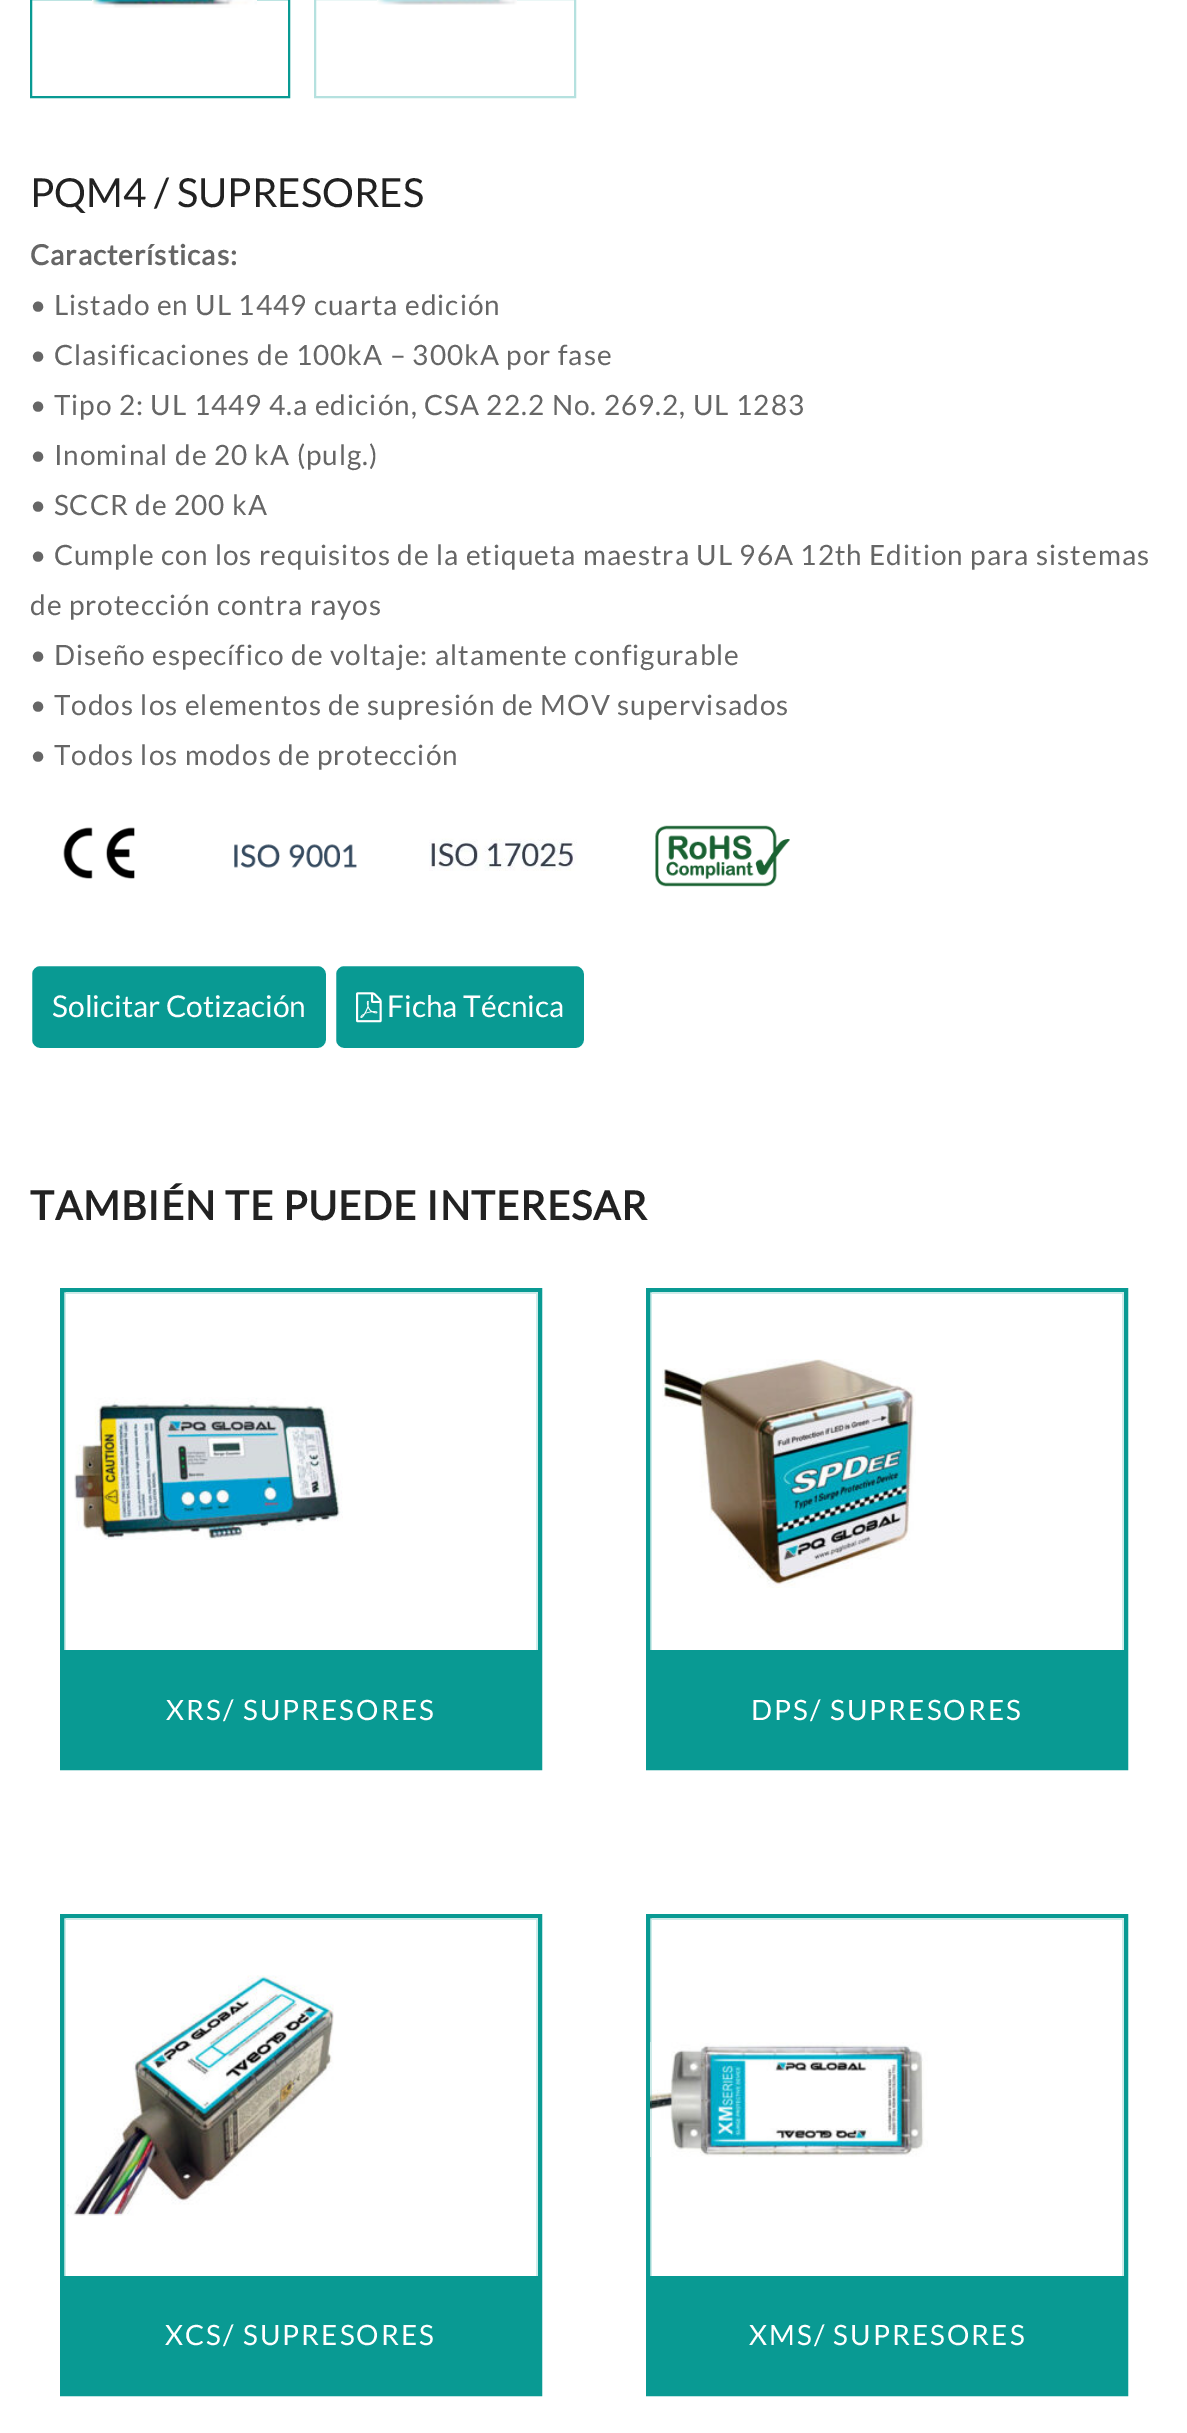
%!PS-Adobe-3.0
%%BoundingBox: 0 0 1187 2433
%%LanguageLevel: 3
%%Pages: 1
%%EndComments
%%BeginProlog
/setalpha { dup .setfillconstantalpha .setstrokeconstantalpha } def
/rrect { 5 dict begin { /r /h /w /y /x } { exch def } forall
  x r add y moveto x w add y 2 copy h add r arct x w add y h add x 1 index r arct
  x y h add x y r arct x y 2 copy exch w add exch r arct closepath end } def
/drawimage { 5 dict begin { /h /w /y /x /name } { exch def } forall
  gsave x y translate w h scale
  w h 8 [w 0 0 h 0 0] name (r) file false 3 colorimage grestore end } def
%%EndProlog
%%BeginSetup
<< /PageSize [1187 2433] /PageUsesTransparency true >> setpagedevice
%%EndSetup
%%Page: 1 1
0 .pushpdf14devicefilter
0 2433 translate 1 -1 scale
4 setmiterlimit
1 setgray
0 0 1187 2433 rectfill
0.808 0.922 0.914 setrgbcolor
1122 1920 2 356 rectfill
536 1920 2 356 rectfill
64 1918 2 358 rectfill
1122 1294 2 356 rectfill
650 1292 2 358 rectfill
536 1294 2 356 rectfill
64 1292 2 358 rectfill
0.035 0.604 0.576 setrgbcolor
2 setlinewidth
31 -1 258 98 rectstroke
(images/1.raw) 92 0 165 8 drawimage
0.71 0.882 0.875 setrgbcolor
315 -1 260 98 rectstroke
(images/2.raw) 377 0 140 5 drawimage
(images/3.raw) 63 827 72 52 drawimage
(images/4.raw) 234 844 123 24 drawimage
(images/5.raw) 429 838 149 33 drawimage
(images/6.raw) 655 825 135 62 drawimage
0.035 0.604 0.576 setrgbcolor
31 965 296 84 9 rrect gsave fill grestore
1 setgray
stroke
0.035 0.604 0.576 setrgbcolor
335 965 250 84 9 rrect gsave fill grestore
1 setgray
stroke
(images/7.raw) 356 992 26 31 drawimage
0.035 0.604 0.576 setrgbcolor
4 setlinewidth
62 1290 478 478 rectstroke
0.808 0.922 0.914 setrgbcolor
66 1292 472 2 rectfill
(images/8.raw) 74 1397 269 143 drawimage
0.035 0.604 0.576 setrgbcolor
64 1650 474 116 rectfill
648 1290 478 478 rectstroke
0.808 0.922 0.914 setrgbcolor
652 1292 472 2 rectfill
(images/9.raw) 662 1359 254 229 drawimage
0.035 0.604 0.576 setrgbcolor
650 1650 474 116 rectfill
62 1916 478 478 rectstroke
0.808 0.922 0.914 setrgbcolor
66 1918 472 2 rectfill
(images/10.raw) 67 1975 267 241 drawimage
0.035 0.604 0.576 setrgbcolor
64 2276 474 116 rectfill
648 1916 478 478 rectstroke
(images/11.raw) 650 2042 278 115 drawimage
0.2 setalpha
650 1918 2 358 rectfill
1 setalpha
0.808 0.922 0.914 setrgbcolor
652 1918 472 2 rectfill
0.035 0.604 0.576 setrgbcolor
650 2276 474 116 rectfill
/Lato-Regular [40 0 0 -40 0 0] selectfont
0.133 setgray
30 207 moveto (PQM4 / SUPRESORES) show
/Lato-Bold [28 0 0 -28 0 0] selectfont
0.4 setgray
30 265 moveto 1 0 (Características:) ashow
/Lato-Regular [28 0 0 -28 0 0] selectfont
30 315 moveto 1 0 (• Listado en UL 1449 cuarta edición) ashow
30 365 moveto 1 0 (• Clasificaciones de 100kA – 300kA por fase) ashow
30 415 moveto 1 0 (• Tipo 2: UL 1449 4.a edición, CSA 22.2 No. 269.2, UL 1283) ashow
30 465 moveto 1 0 (• Inominal de 20 kA \(pulg.\)) ashow
30 515 moveto 1 0 (• SCCR de 200 kA) ashow
30 565 moveto 1 0 (• Cumple con los requisitos de la etiqueta maestra UL 96A 12th Edition para sistemas) ashow
30 615 moveto 1 0 (de protección contra rayos) ashow
30 665 moveto 1 0 (• Diseño específico de voltaje: altamente configurable) ashow
30 715 moveto 1 0 (• Todos los elementos de supresión de MOV supervisados) ashow
30 765 moveto 1 0 (• Todos los modos de protección) ashow
/Lato-Regular [30 0 0 -30 0 0] selectfont
1 setgray
52 1017 moveto (Solicitar Cotización) show
387 1017 moveto (Ficha Técnica) show
/Lato-Bold [40 0 0 -40 0 0] selectfont
0.133 setgray
30 1220 moveto 1 0 (TAMBIÉN TE PUEDE INTERESAR) ashow
/Lato-Regular [28 0 0 -28 0 0] selectfont
1 setgray
166 1720 moveto 2 0 (XRS/ SUPRESORES) ashow
751 1720 moveto 2 0 (DPS/ SUPRESORES) ashow
165 2345 moveto 2 0 (XCS/ SUPRESORES) ashow
749 2345 moveto 2 0 (XMS/ SUPRESORES) ashow
.poppdf14devicefilter showpage
%%EOF
